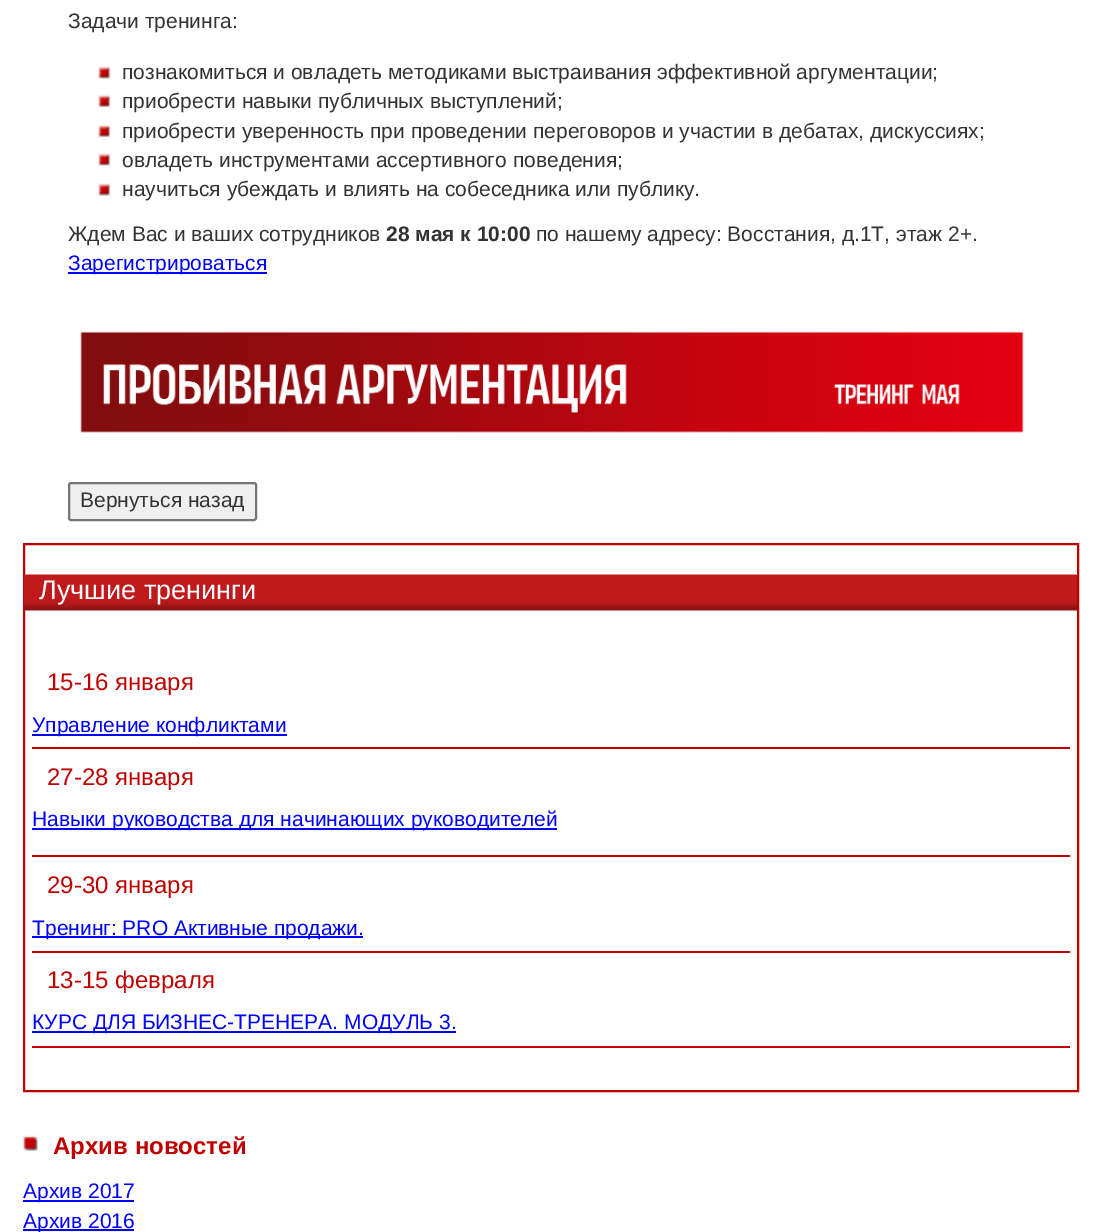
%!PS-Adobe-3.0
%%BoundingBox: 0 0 1100 1232
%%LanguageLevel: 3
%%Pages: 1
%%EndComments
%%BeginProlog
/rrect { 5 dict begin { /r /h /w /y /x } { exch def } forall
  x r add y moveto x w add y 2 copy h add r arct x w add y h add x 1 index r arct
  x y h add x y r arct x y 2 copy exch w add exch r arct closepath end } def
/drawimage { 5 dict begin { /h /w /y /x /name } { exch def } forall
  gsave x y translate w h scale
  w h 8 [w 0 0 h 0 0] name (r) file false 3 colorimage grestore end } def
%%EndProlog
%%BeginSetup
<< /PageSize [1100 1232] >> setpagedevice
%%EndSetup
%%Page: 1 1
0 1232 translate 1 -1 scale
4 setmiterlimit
1 setgray
0 0 1100 1232 rectfill
(images/1.raw) 97 66 14 14 drawimage
(images/2.raw) 97 94 14 14 drawimage
(images/2.raw) 97 124 14 14 drawimage
(images/1.raw) 97 153 14 14 drawimage
(images/1.raw) 97 183 14 14 drawimage
0 0 1 setrgbcolor
68 272 199 2 rectfill
(images/3.raw) 80 331 944 102 drawimage
0.937 setgray
69 483 187 37 2 rrect gsave fill grestore
0.463 setgray
2 setlinewidth
stroke
0.753 0 0 setrgbcolor
24 544 1054 547 rectstroke
(images/4.raw) 24 574 1053 37 drawimage
32 747 1038 2 rectfill
0 0 1 setrgbcolor
32 734 255 2 rectfill
0.753 0 0 setrgbcolor
32 855 1038 2 rectfill
0 0 1 setrgbcolor
32 828 525 2 rectfill
0.753 0 0 setrgbcolor
32 951 1038 2 rectfill
0 0 1 setrgbcolor
32 936 331 2 rectfill
0.753 0 0 setrgbcolor
32 1046 1038 2 rectfill
0 0 1 setrgbcolor
32 1031 424 2 rectfill
(images/5.raw) 22 1135 16 16 drawimage
23 1200 111 2 rectfill
23 1229 111 2 rectfill
/LiberationSans-Regular [21 0 0 -21 0 0] selectfont
0.2 setgray
68 28 moveto (Задачи тренинга:) show
122 79 moveto (познакомиться и овладеть методиками выстраивания эффективной аргументации;) show
122 108 moveto (приобрести навыки публичных выступлений;) show
122 138 moveto (приобрести уверенность при проведении переговоров и участии в дебатах, дискуссиях;) show
122 167 moveto (овладеть инструментами ассертивного поведения;) show
122 196 moveto (научиться убеждать и влиять на собеседника или публику.) show
68 241 moveto (Ждем Вас и ваших сотрудников) show
/LiberationSans-Bold [21 0 0 -21 0 0] selectfont
386 241 moveto (28 мая к 10:00) show
/LiberationSans-Regular [21 0 0 -21 0 0] selectfont
536 241 moveto (по нашему адресу: Восстания, д.1Т, этаж 2+.) show
0 0 1 setrgbcolor
68 270 moveto (Зарегистрироваться) show
0.2 setgray
80 507 moveto (Вернуться назад) show
/LiberationSans-Regular [27 0 0 -27 0 0] selectfont
1 setgray
39 599 moveto (Лучшие тренинги) show
/LiberationSans-Regular [24 0 0 -24 0 0] selectfont
0.753 0 0 setrgbcolor
47 690 moveto (15-16 января) show
/LiberationSans-Regular [21 0 0 -21 0 0] selectfont
0 0 1 setrgbcolor
32 732 moveto (Управление конфликтами) show
/LiberationSans-Regular [24 0 0 -24 0 0] selectfont
0.753 0 0 setrgbcolor
47 785 moveto (27-28 января) show
/LiberationSans-Regular [21 0 0 -21 0 0] selectfont
0 0 1 setrgbcolor
32 826 moveto (Навыки руководства для начинающих руководителей) show
/LiberationSans-Regular [24 0 0 -24 0 0] selectfont
0.753 0 0 setrgbcolor
47 893 moveto (29-30 января) show
/LiberationSans-Regular [21 0 0 -21 0 0] selectfont
0 0 1 setrgbcolor
32 935 moveto (Тренинг: PRO Активные продажи.) show
/LiberationSans-Regular [24 0 0 -24 0 0] selectfont
0.753 0 0 setrgbcolor
47 988 moveto (13-15 февраля) show
/LiberationSans-Regular [21 0 0 -21 0 0] selectfont
0 0 1 setrgbcolor
32 1029 moveto (КУРС ДЛЯ БИЗНЕС-ТРЕНЕРА. МОДУЛЬ 3.) show
/LiberationSans-Bold [24 0 0 -24 0 0] selectfont
0.753 0 0 setrgbcolor
53 1154 moveto (Архив новостей) show
/LiberationSans-Regular [21 0 0 -21 0 0] selectfont
0 0 1 setrgbcolor
23 1198 moveto (Архив 2017) show
23 1228 moveto (Архив 2016) show
showpage
%%EOF
